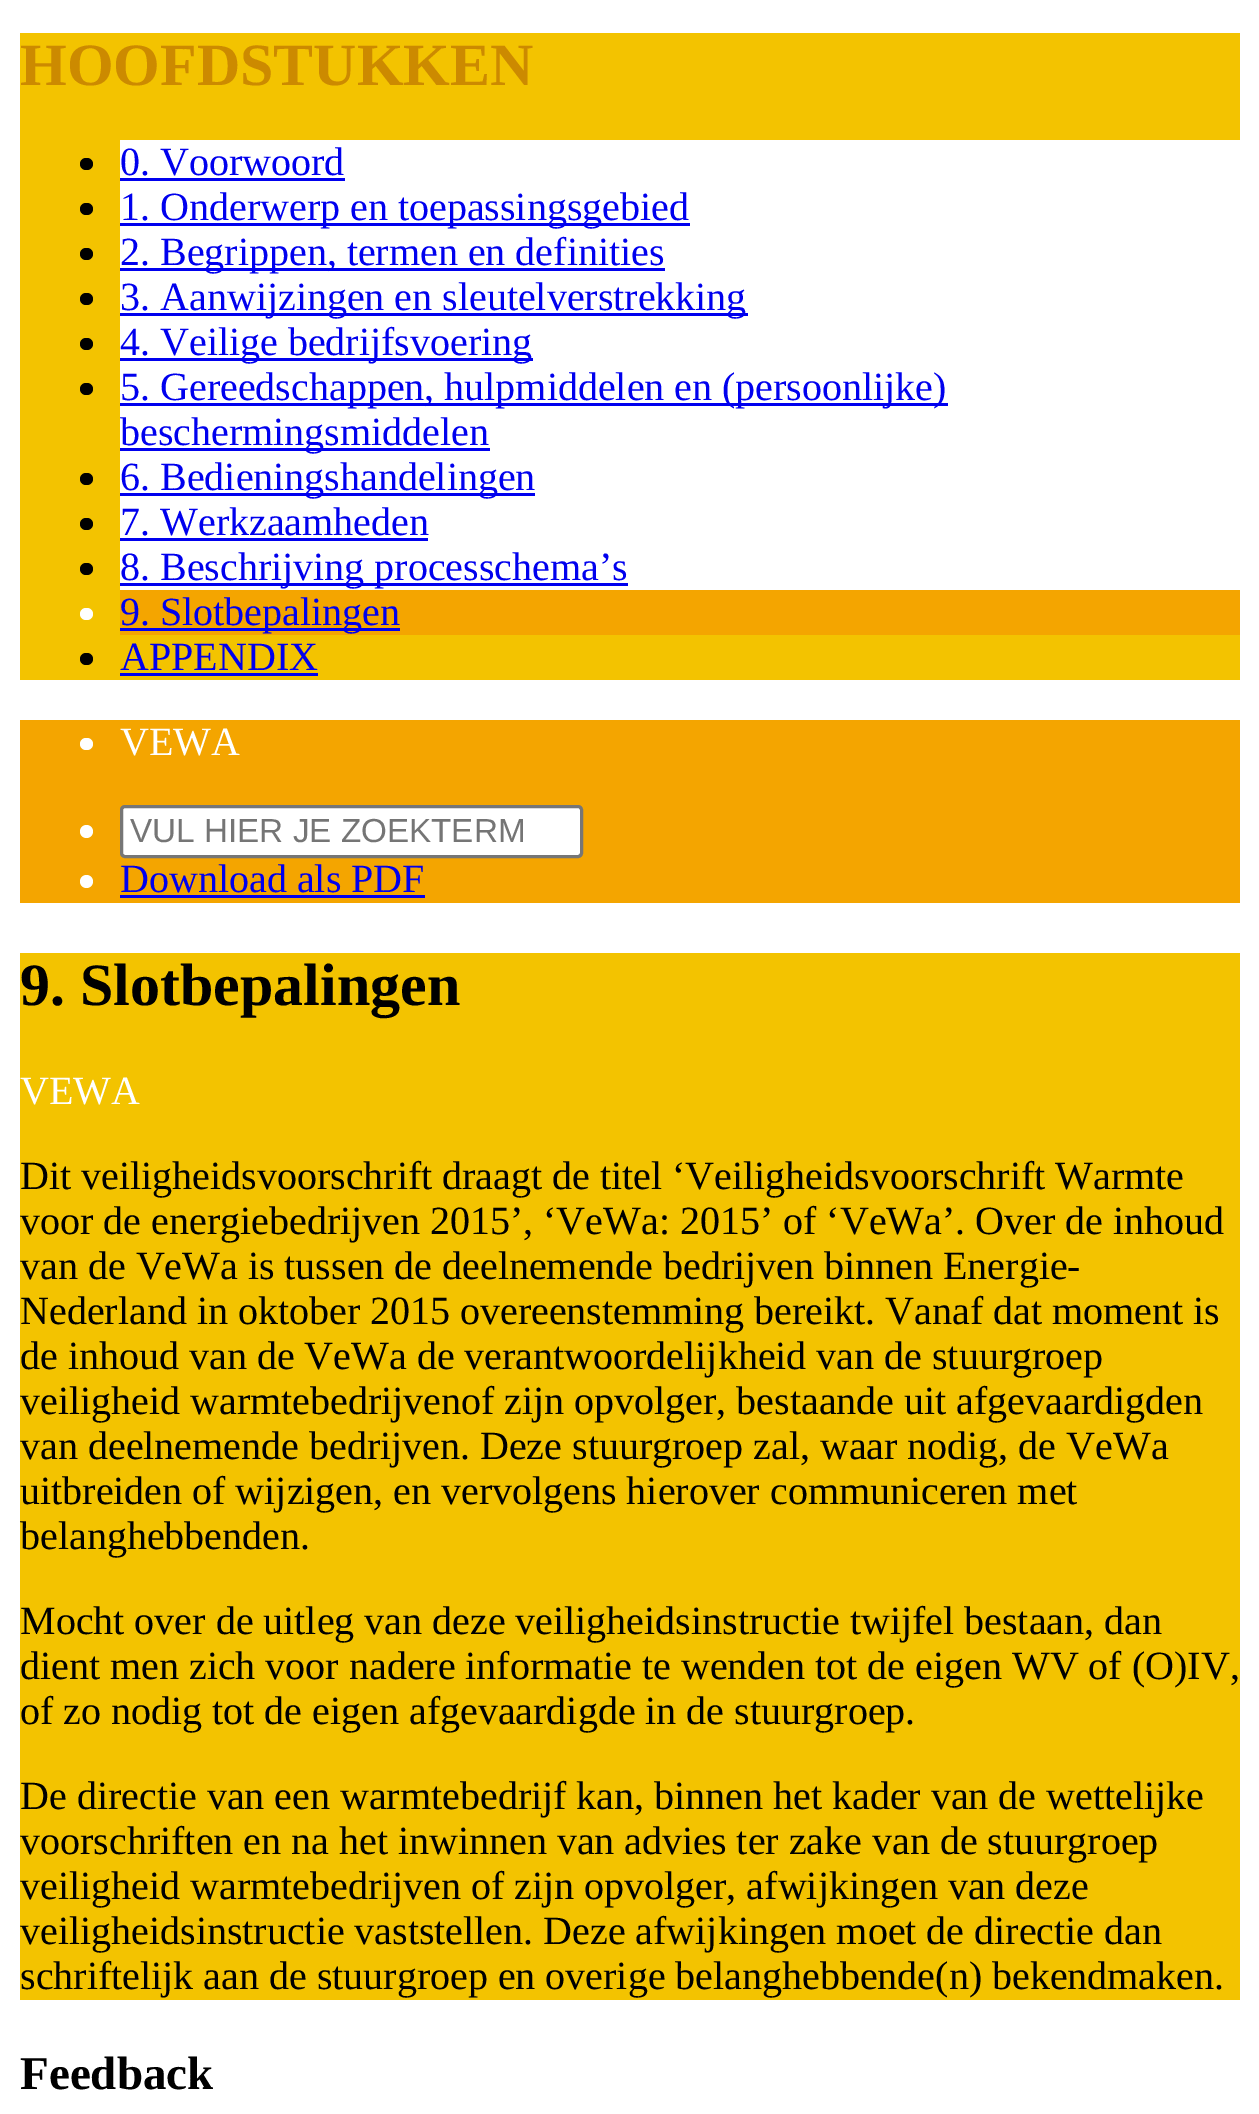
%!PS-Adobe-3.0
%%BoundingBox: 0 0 1259 2114
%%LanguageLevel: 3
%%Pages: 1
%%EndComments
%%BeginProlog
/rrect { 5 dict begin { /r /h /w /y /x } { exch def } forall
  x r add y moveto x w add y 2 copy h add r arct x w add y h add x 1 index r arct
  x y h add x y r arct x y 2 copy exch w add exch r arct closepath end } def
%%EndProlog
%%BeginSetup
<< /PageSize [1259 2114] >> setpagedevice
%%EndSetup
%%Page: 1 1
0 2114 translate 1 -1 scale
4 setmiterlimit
1 setgray
0 0 1259 2114 rectfill
0.953 0.765 0 setrgbcolor
20 33 1220 647 rectfill
1 setgray
120 140 1120 450 rectfill
0 setgray
80 158 13 12 6 rrect fill
0 0 0.933 setrgbcolor
120 178 225 3 rectfill
0 setgray
80 203 13 12 6 rrect fill
0 0 0.933 setrgbcolor
120 223 570 3 rectfill
0 setgray
80 248 13 12 6 rrect fill
0 0 0.933 setrgbcolor
120 268 545 3 rectfill
0 setgray
80 293 13 12 6 rrect fill
0 0 0.933 setrgbcolor
120 313 628 3 rectfill
0 setgray
80 338 13 12 6 rrect fill
0 0 0.933 setrgbcolor
120 358 413 3 rectfill
0 setgray
80 383 13 12 6 rrect fill
0 0 0.933 setrgbcolor
120 403 828 3 rectfill
120 448 370 3 rectfill
0 setgray
80 473 13 12 6 rrect fill
0 0 0.933 setrgbcolor
120 493 415 3 rectfill
0 setgray
80 518 13 12 6 rrect fill
0 0 0.933 setrgbcolor
120 538 308 3 rectfill
0 setgray
80 563 13 12 6 rrect fill
0 0 0.933 setrgbcolor
120 583 508 3 rectfill
0.957 0.647 0 setrgbcolor
120 590 1120 45 rectfill
1 setgray
80 608 13 12 6 rrect fill
0 0 0.933 setrgbcolor
120 628 280 3 rectfill
0 setgray
80 653 13 12 6 rrect fill
0 0 0.933 setrgbcolor
120 673 198 3 rectfill
0.957 0.647 0 setrgbcolor
20 720 1220 183 rectfill
1 setgray
80 738 13 12 6 rrect fill
newpath 86.5 831.5 6.5 0 360 arc closepath fill
121.5 806.5 460 50 3.5 rrect gsave fill grestore
0.463 setgray
3 setlinewidth
stroke
1 setgray
newpath 86.5 881.5 6.5 0 360 arc closepath fill
0 0 0.933 setrgbcolor
120 895 305 3 rectfill
0.953 0.765 0 setrgbcolor
20 953 1220 1047 rectfill
/LiberationSerif-Bold [60 0 0 -60 0 0] selectfont
0.8 0.541 0 setrgbcolor
20 85 moveto (HOOFDSTUKKEN) show
/LiberationSerif-Regular [40 0 0 -40 0 0] selectfont
0 0 0.933 setrgbcolor
120 175 moveto (0. Voorwoord) show
120 220 moveto (1. Onderwerp en toepassingsgebied) show
120 265 moveto (2. Begrippen, termen en definities) show
120 310 moveto (3. Aanwijzingen en sleutelverstrekking) show
120 355 moveto (4. Veilige bedrijfsvoering) show
120 400 moveto (5. Gereedschappen, hulpmiddelen en \(persoonlijke\)) show
120 445 moveto (beschermingsmiddelen) show
120 490 moveto (6. Bedieningshandelingen) show
120 535 moveto (7. Werkzaamheden) show
120 580 moveto (8. Beschrijving processchema’s) show
120 625 moveto (9. Slotbepalingen) show
120 670 moveto (APPENDIX) show
1 setgray
120 755 moveto (VEWA) show
/LiberationSans-Regular [33.25 0 0 -33.25 0 0] selectfont
0.459 setgray
130 842 moveto (VUL HIER JE ZOEKTERM) show
/LiberationSerif-Regular [40 0 0 -40 0 0] selectfont
0 0 0.933 setrgbcolor
120 892 moveto (Download als PDF) show
/LiberationSerif-Bold [60 0 0 -60 0 0] selectfont
0 setgray
20 1005 moveto (9. Slotbepalingen) show
/LiberationSerif-Regular [40 0 0 -40 0 0] selectfont
1 setgray
20 1104 moveto (VEWA) show
0 setgray
20 1189 moveto (Dit veiligheidsvoorschrift draagt de titel ‘Veiligheidsvoorschrift Warmte) show
20 1234 moveto (voor de energiebedrijven 2015’, ‘VeWa: 2015’ of ‘VeWa’. Over de inhoud) show
20 1279 moveto (van de VeWa is tussen de deelnemende bedrijven binnen Energie-) show
20 1324 moveto (Nederland in oktober 2015 overeenstemming bereikt. Vanaf dat moment is) show
20 1369 moveto (de inhoud van de VeWa de verantwoordelijkheid van de stuurgroep) show
20 1414 moveto (veiligheid warmtebedrijvenof zijn opvolger, bestaande uit afgevaardigden) show
20 1459 moveto (van deelnemende bedrijven. Deze stuurgroep zal, waar nodig, de VeWa) show
20 1504 moveto (uitbreiden of wijzigen, en vervolgens hierover communiceren met) show
20 1549 moveto (belanghebbenden.) show
20 1634 moveto (Mocht over de uitleg van deze veiligheidsinstructie twijfel bestaan, dan) show
20 1679 moveto (dient men zich voor nadere informatie te wenden tot de eigen WV of \(O\)IV,) show
20 1724 moveto (of zo nodig tot de eigen afgevaardigde in de stuurgroep.) show
20 1809 moveto (De directie van een warmtebedrijf kan, binnen het kader van de wettelijke) show
20 1854 moveto (voorschriften en na het inwinnen van advies ter zake van de stuurgroep) show
20 1899 moveto (veiligheid warmtebedrijven of zijn opvolger, afwijkingen van deze) show
20 1944 moveto (veiligheidsinstructie vaststellen. Deze afwijkingen moet de directie dan) show
20 1989 moveto (schriftelijk aan de stuurgroep en overige belanghebbende\(n\) bekendmaken.) show
/LiberationSerif-Bold [47 0 0 -47 0 0] selectfont
20 2089 moveto (Feedback) show
showpage
%%EOF
